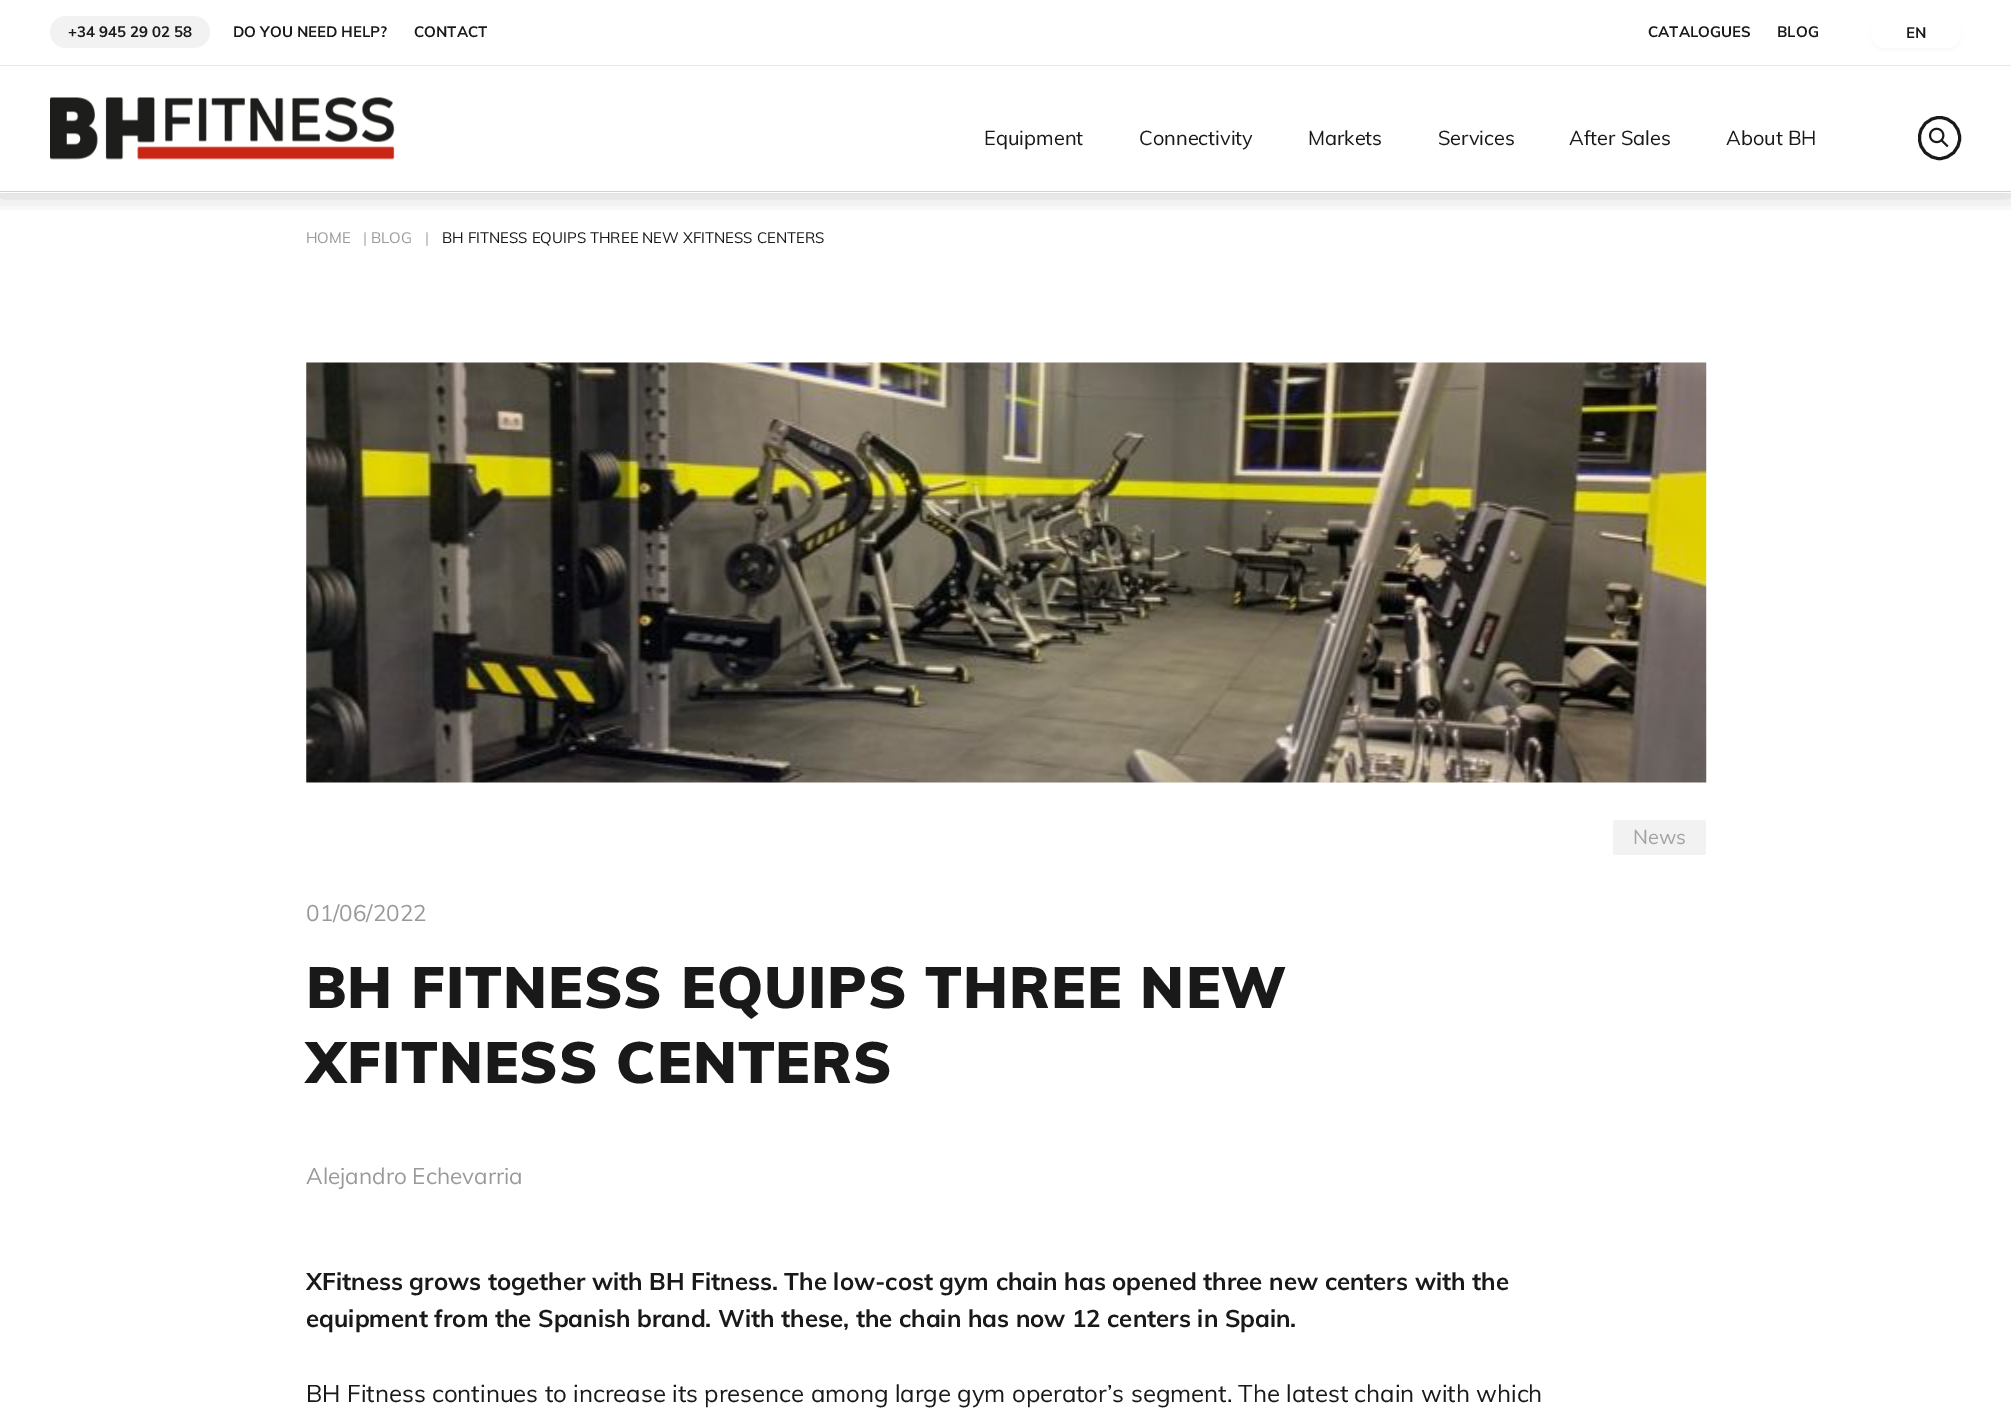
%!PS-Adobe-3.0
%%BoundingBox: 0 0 2011 1423
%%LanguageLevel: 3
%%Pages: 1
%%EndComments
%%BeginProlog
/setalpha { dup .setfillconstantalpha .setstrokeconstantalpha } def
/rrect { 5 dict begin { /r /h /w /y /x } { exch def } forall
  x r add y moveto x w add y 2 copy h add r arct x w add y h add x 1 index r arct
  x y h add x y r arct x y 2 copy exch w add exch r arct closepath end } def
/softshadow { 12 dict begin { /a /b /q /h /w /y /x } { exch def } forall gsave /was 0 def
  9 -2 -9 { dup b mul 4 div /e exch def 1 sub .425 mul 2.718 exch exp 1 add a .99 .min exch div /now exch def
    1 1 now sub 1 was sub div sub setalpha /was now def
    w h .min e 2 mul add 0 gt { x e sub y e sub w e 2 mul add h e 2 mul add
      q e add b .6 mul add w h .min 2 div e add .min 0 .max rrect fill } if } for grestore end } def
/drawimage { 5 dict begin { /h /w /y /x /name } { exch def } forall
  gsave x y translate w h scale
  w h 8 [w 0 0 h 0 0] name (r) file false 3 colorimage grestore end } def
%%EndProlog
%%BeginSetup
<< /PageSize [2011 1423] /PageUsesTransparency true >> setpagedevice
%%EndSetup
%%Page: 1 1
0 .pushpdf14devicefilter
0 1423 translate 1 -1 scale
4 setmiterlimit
1 setgray
0 0 2011 1423 rectfill
gsave
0 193 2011 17 rectclip
0 setgray
0 9 2011 181 0 13 0.31 softshadow
grestore
0.91 setgray
0 65 2011 1 rectfill
0.949 setgray
50 16 160 32 16 rrect fill
0 setgray
1871 20 90 30 15 2.5 0.04 softshadow
1 setgray
1871 18 90 30 15 rrect fill
0 181 2011 12 rectfill
0.82 setgray
0 191 2011 1 rectfill
(images/1.raw) 50 97 345 63 drawimage
0.098 setgray
3 setlinewidth
1919.5 117.5 40 41 20 rrect stroke
(images/2.raw) 1928 127 21 21 drawimage
(images/3.raw) 306 362 1401 421 drawimage
0.949 setgray
1613 820 93 35 2.5 rrect fill
/Muli-Bold [15 0 0 -15 0 0] selectfont
0.098 setgray
68 37 moveto (+34 945 29 02 58) show
233 37 moveto (DO YOU NEED HELP?) show
414 37 moveto (CONTACT) show
1648 37 moveto (CATALOGUES) show
1777 37 moveto (BLOG) show
1906 38 moveto (EN) show
/Muli-Regular [20 0 0 -20 0 0] selectfont
984 145 moveto (Equipment) show
1139 145 moveto (Connectivity) show
1308 145 moveto (Markets) show
1438 145 moveto (Services) show
1569 145 moveto (After Sales) show
1726 145 moveto (About BH) show
/Muli-Regular [15 0 0 -15 0 0] selectfont
0.6 setgray
306 243 moveto (HOME) show
363 243 moveto (| BLOG) show
425 243 moveto (|) show
0.098 setgray
442 243 moveto (BH FITNESS EQUIPS THREE NEW XFITNESS CENTERS) show
/Muli-Regular [20 0 0 -20 0 0] selectfont
0.639 setgray
1633 844 moveto (News) show
/Muli-Regular [22.5 0 0 -22.5 0 0] selectfont
0.6 setgray
306 921 moveto (01/06/2022) show
/Muli-Black [57.5 0 0 -57.5 0 0] selectfont
0.098 setgray
306 1008 moveto 1.05 0 (BH FITNESS EQUIPS THREE NEW) ashow
306 1083 moveto 1.05 0 (XFITNESS CENTERS) ashow
/Muli-Regular [22.5 0 0 -22.5 0 0] selectfont
0.6 setgray
306 1184 moveto (Alejandro Echevarria) show
/Muli-Bold [24 0 0 -24 0 0] selectfont
0.098 setgray
306 1290 moveto (XFitness grows together with BH Fitness. The low-cost gym chain has opened three new centers with the) show
306 1327 moveto (equipment from the Spanish brand. With these, the chain has now 12 centers in Spain.) show
/Muli-Regular [24 0 0 -24 0 0] selectfont
306 1402 moveto (BH Fitness continues to increase its presence among large gym operator’s segment. The latest chain with which) show
.poppdf14devicefilter showpage
%%EOF
